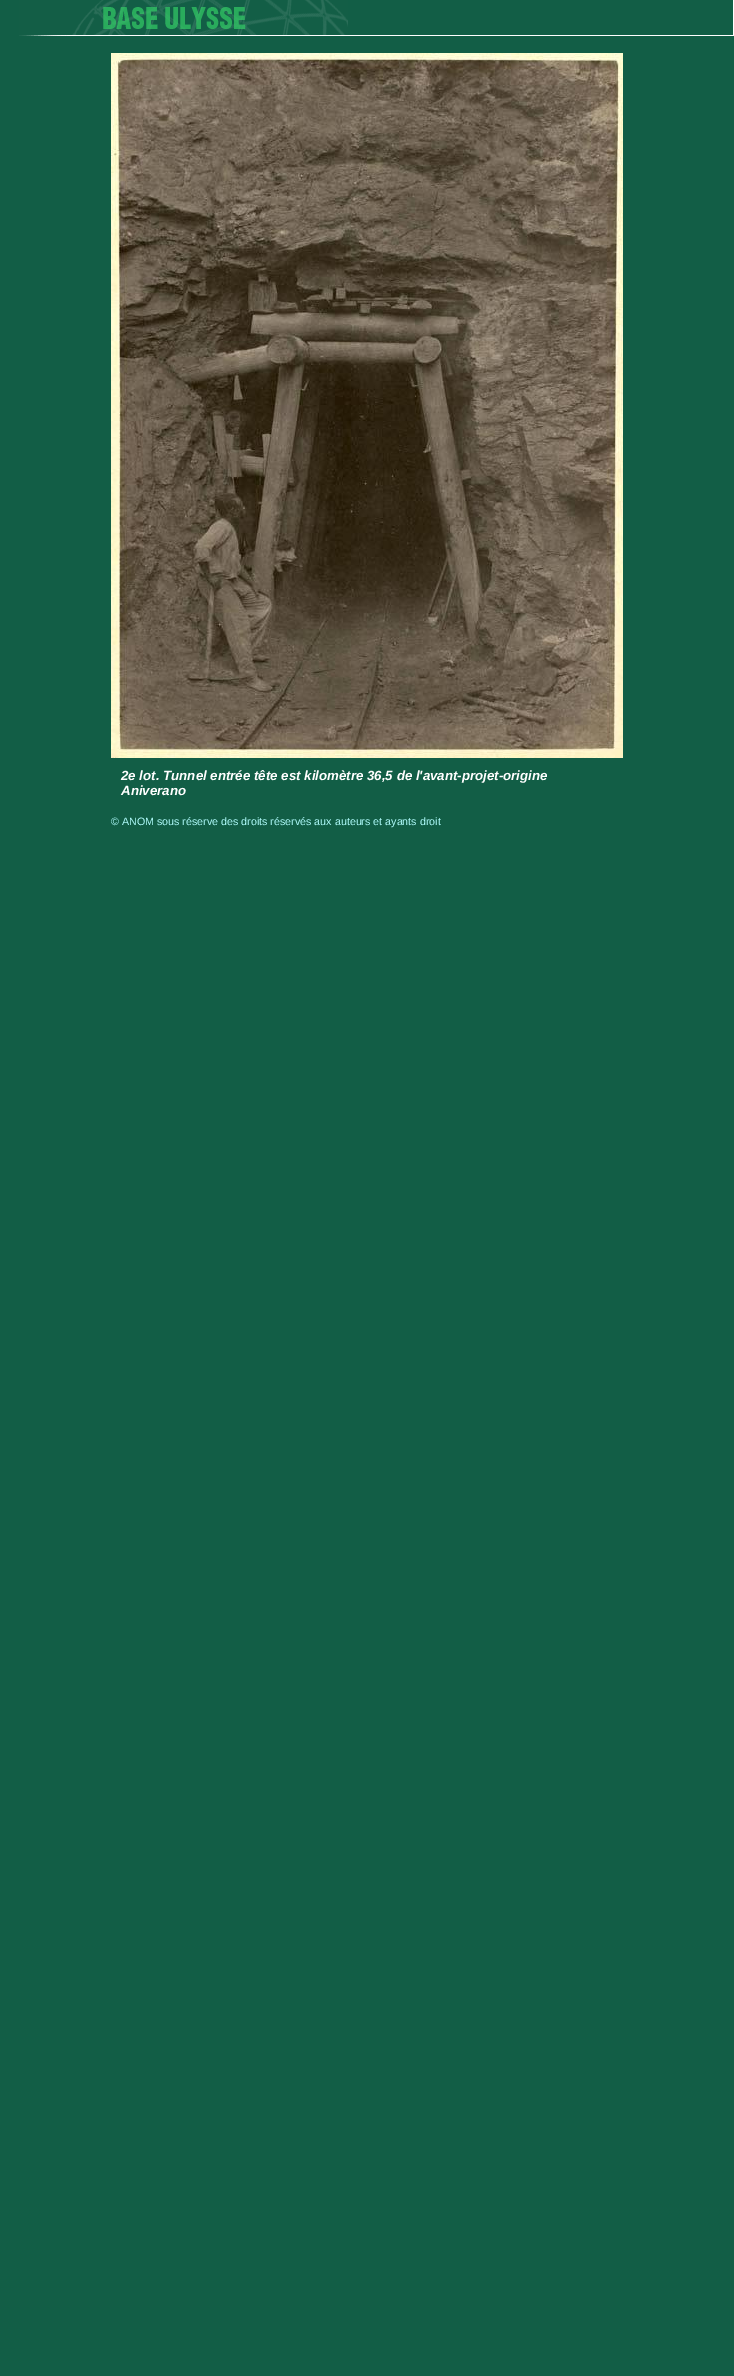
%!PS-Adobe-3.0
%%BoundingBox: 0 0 734 2376
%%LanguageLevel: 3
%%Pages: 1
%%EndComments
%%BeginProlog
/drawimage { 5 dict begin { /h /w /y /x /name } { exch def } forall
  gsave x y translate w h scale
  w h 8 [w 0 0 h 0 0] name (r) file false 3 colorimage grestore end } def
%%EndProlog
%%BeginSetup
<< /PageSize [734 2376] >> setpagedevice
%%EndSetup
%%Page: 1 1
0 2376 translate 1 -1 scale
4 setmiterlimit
0.071 0.369 0.275 setrgbcolor
0 0 734 2376 rectfill
(images/1.raw) 19 0 329 36 drawimage
1 setgray
733 0 1 36 rectfill
348 35 386 1 rectfill
(images/2.raw) 111 53 512 705 drawimage
/LiberationSans-BoldItalic [13.3 0 0 -13.3 0 0] selectfont
121 780 moveto (2e lot. Tunnel entrée tête est kilomètre 36,5 de l'avant-projet-origine) show
121 795 moveto (Aniverano) show
/LiberationSans-Regular [10.7 0 0 -10.7 0 0] selectfont
0.686 0.984 0.984 setrgbcolor
111 825 moveto (© ANOM sous réserve des droits réservés aux auteurs et ayants droit) show
showpage
%%EOF
